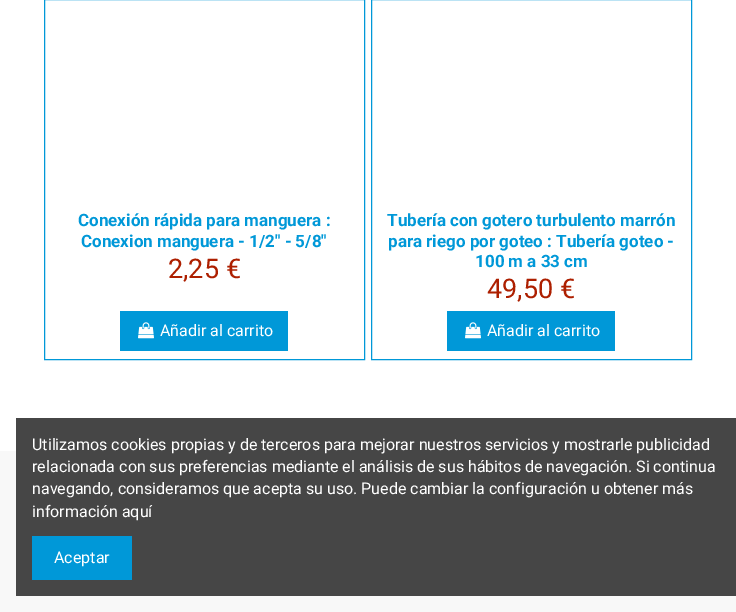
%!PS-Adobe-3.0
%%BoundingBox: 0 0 736 612
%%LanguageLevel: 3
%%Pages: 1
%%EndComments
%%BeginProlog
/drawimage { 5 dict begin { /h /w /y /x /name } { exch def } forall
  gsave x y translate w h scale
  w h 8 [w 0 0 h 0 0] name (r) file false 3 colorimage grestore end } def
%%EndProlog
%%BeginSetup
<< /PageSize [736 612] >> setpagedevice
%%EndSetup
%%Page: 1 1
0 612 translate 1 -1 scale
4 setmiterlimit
1 setgray
0 0 736 612 rectfill
0 0.596 0.847 setrgbcolor
44.5 -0.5 320 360 rectstroke
120 311 168 40 rectfill
(images/1.raw) 138 322 16 17 drawimage
371.5 -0.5 320 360 rectstroke
447 311 168 40 rectfill
(images/1.raw) 465 322 16 17 drawimage
0.973 setgray
0 451 736 161 rectfill
0.275 setgray
16 418 720 178 rectfill
0 0.596 0.847 setrgbcolor
32 536 100 44 rectfill
/Roboto-Bold [17 0 0 -17 0 0] selectfont
78 226 moveto (Conexión rápida para manguera :) show
81 247 moveto (Conexion manguera - 1/2" - 5/8") show
/Roboto-Regular [27 0 0 -27 0 0] selectfont
0.678 0.122 0 setrgbcolor
168 278 moveto (2,25 €) show
/Roboto-Regular [16 0 0 -16 0 0] selectfont
1 setgray
160 336 moveto (Añadir al carrito) show
/Roboto-Bold [17 0 0 -17 0 0] selectfont
0 0.596 0.847 setrgbcolor
387 226 moveto (Tubería con gotero turbulento marrón) show
388 247 moveto (para riego por goteo : Tubería goteo -) show
475 267 moveto (100 m a 33 cm) show
/Roboto-Regular [27 0 0 -27 0 0] selectfont
0.678 0.122 0 setrgbcolor
487 298 moveto (49,50 €) show
/Roboto-Regular [16 0 0 -16 0 0] selectfont
1 setgray
487 336 moveto (Añadir al carrito) show
32 450 moveto (Utilizamos cookies propias y de terceros para mejorar nuestros servicios y mostrarle publicidad) show
32 472 moveto (relacionada con sus preferencias mediante el análisis de sus hábitos de navegación. Si continua) show
32 494 moveto (navegando, consideramos que acepta su uso. Puede cambiar la configuración u obtener más) show
32 517 moveto (información aquí) show
54 563 moveto (Aceptar) show
showpage
%%EOF
